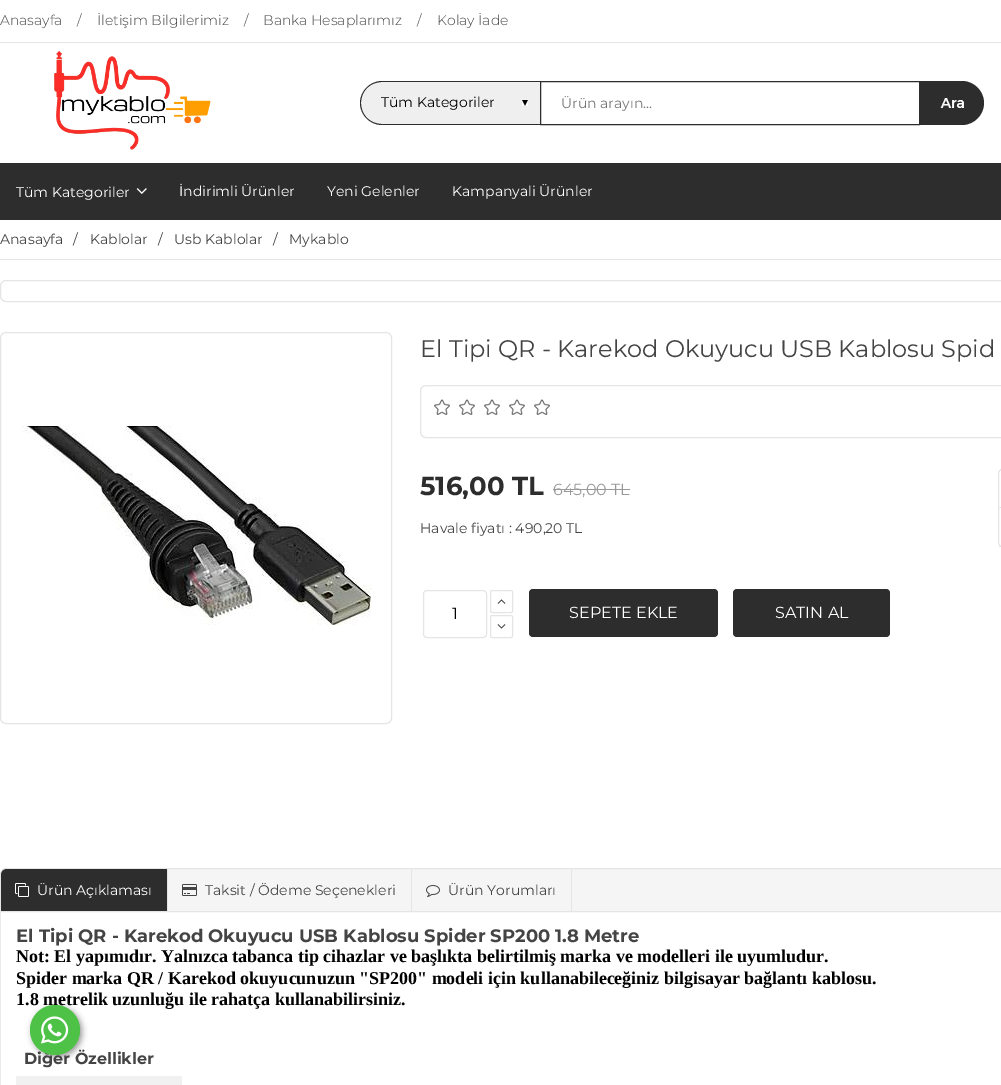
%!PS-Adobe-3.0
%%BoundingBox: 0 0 1001 1085
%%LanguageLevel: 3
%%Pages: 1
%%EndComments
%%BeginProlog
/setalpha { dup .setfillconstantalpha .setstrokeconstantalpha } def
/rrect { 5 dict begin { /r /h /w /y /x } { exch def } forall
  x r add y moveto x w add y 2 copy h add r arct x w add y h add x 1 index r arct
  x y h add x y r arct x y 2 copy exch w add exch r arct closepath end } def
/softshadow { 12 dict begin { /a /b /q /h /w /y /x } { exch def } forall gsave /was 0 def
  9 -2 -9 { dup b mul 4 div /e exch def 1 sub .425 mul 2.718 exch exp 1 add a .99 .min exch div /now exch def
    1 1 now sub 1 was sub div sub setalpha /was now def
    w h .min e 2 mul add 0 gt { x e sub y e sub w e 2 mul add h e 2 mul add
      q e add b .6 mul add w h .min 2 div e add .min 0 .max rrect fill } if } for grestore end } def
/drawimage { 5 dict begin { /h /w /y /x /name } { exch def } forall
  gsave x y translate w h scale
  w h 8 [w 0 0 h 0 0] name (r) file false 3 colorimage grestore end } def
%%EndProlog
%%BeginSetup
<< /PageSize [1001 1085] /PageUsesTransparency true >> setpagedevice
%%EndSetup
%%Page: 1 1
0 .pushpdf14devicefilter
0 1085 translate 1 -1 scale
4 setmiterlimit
1 setgray
0 0 1001 1085 rectfill
0.898 setgray
0 42 1001 1 rectfill
(images/1.raw) 54 51 157 99 drawimage
0.937 setgray
newpath 382 81 moveto 540 81 lineto 540 125 lineto 382 125 lineto 370 125 360 115 360 103 curveto 360 91 370 81 382 81 curveto closepath fill
(images/2.raw) 522 100 6 6 drawimage
0.176 setgray
newpath 382 81 moveto 540 81 lineto 540 125 lineto 382 125 lineto 370 125 360 115 360 103 curveto 360 91 370 81 382 81 curveto closepath 382 82 moveto 540 82 lineto 540 124 lineto 382 124 lineto 370 124 361 115 361 103 curveto 361 91 370 82 382 82 curveto closepath eofill
540.5 81.5 379 43 rectstroke
newpath 920 81 moveto 962 81 lineto 974 81 984 91 984 103 curveto 984 115 974 125 962 125 curveto 920 125 lineto closepath fill
(images/3.raw) 940 98 24 10 drawimage
0 163 1001 57 rectfill
(images/4.raw) 136 188 11 6 drawimage
0.898 setgray
0 259 1001 1 rectfill
0.5 280.5 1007 21 5.5 rrect stroke
0.5 332.5 391 391 5.5 rrect stroke
(images/5.raw) 21 425 350 201 drawimage
420.5 385.5 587 52 5.5 rrect stroke
(images/6.raw) 434 399 116 16 drawimage
0.6 setgray
553 489 77 1 rectfill
0.898 setgray
423.5 590.5 63 47 3.5 rrect stroke
490.5 590.5 22 22 1.5 rrect stroke
(images/7.raw) 497 599 9 5 drawimage
490.5 615.5 22 22 1.5 rrect stroke
(images/8.raw) 497 624 9 5 drawimage
0.176 setgray
529 589 189 48 4 rrect fill
733 589 157 48 4 rrect fill
0.898 setgray
998.5 468.5 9 79 5.5 rrect stroke
999 507 2 1 rectfill
999 546 2 1 rectfill
0.961 setgray
newpath 6 868.5 moveto 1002 868.5 lineto 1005 868.5 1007.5 871 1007.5 874 curveto 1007.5 911.5 lineto 0.5 911.5 lineto 0.5 874 lineto 0.5 871 3 868.5 6 868.5 curveto closepath gsave fill grestore
0.898 setgray
stroke
0.176 setgray
newpath 7 869 moveto 167 869 lineto 167 911 lineto 1 911 lineto 1 875 lineto 1 871.5 3.5 869 7 869 curveto closepath fill
0.898 setgray
167 869 1 42 rectfill
(images/9.raw) 15 883 14 14 drawimage
411 869 1 42 rectfill
(images/10.raw) 182 884 15 12 drawimage
571 869 1 42 rectfill
(images/11.raw) 426 885 14 12 drawimage
0.918 setgray
newpath 0 912 moveto 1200 912 lineto 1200 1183 lineto 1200 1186 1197 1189 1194 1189 curveto 6 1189 lineto 3 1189 0 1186 0 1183 curveto closepath 1 912 moveto 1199 912 lineto 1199 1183 lineto 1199 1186 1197 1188 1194 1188 curveto 6 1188 lineto 3 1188 1 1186 1 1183 curveto closepath eofill
0.945 setgray
16 1076 166 9 rectfill
0 setgray
32 1007 50 50 25 3 0.4 softshadow
/Montserrat-Light [14 0 0 -14 0 0] selectfont
0.267 setgray
0 25 moveto (Anasayfa) show
77 25 moveto (/) show
97 25 moveto (İletişim Bilgilerimiz) show
244 25 moveto (/) show
263 25 moveto (Banka Hesaplarımız) show
417 25 moveto (/) show
437 25 moveto (Kolay İade) show
/Montserrat-Regular [14 0 0 -14 0 0] selectfont
0 setgray
381 107 moveto (Tüm Kategoriler) show
0.459 setgray
561 108 moveto (Ürün arayın...) show
1 setgray
16 197 moveto (Tüm Kategoriler) show
179 196 moveto (İndirimli Ürünler) show
327 196 moveto (Yeni Gelenler) show
452 196 moveto (Kampanyali Ürünler) show
0.267 setgray
0 244 moveto (Anasayfa) show
73 244 moveto (/) show
90 244 moveto (Kablolar) show
158 244 moveto (/) show
174 244 moveto (Usb Kablolar) show
273 244 moveto (/) show
289 244 moveto (Mykablo) show
/Montserrat-Regular [24 0 0 -24 0 0] selectfont
420 357 moveto (El Tipi QR - Karekod Okuyucu USB Kablosu Spid) show
/Montserrat-Bold [26 0 0 -26 0 0] selectfont
0.176 setgray
420 495 moveto (516,00 TL) show
/Montserrat-Regular [16 0 0 -16 0 0] selectfont
0.6 setgray
553 495 moveto (645,00 TL) show
/Montserrat-Regular [14 0 0 -14 0 0] selectfont
0.267 setgray
420 533 moveto (Havale fiyatı : 490,20 TL) show
/Montserrat-Regular [16 0 0 -16 0 0] selectfont
0 setgray
452 619 moveto (1) show
1 setgray
569 618 moveto (SEPETE EKLE) show
775 618 moveto (SATIN AL) show
/Montserrat-Regular [14 0 0 -14 0 0] selectfont
37 895 moveto (Ürün Açıklaması) show
0.267 setgray
205 895 moveto (Taksit / Ödeme Seçenekleri) show
448 895 moveto (Ürün Yorumları) show
/Montserrat-Bold [18 0 0 -18 0 0] selectfont
16 942 moveto (El Tipi QR - Karekod Okuyucu USB Kablosu Spider SP200 1.8 Metre) show
/LiberationSerif-Bold [18 0 0 -18 0 0] selectfont
0 setgray
16 962 moveto (Not: El yapımıdır. Yalnızca tabanca tip cihazlar ve başlıkta belirtilmiş marka ve modelleri ile uyumludur.) show
16 984 moveto (Spider marka QR / Karekod okuyucunuzun "SP200" modeli için kullanabileceğiniz bilgisayar bağlantı kablosu.) show
16 1005 moveto (1.8 metrelik uzunluğu ile rahatça kullanabilirsiniz.) show
/Montserrat-Bold [16 0 0 -16 0 0] selectfont
0.267 setgray
24 1064 moveto (Diğer Özellikler) show
0.302 0.761 0.278 setrgbcolor
newpath 55 1030 25 0 360 arc closepath fill
(images/12.raw) 41 1016 28 28 drawimage
.poppdf14devicefilter showpage
%%EOF
